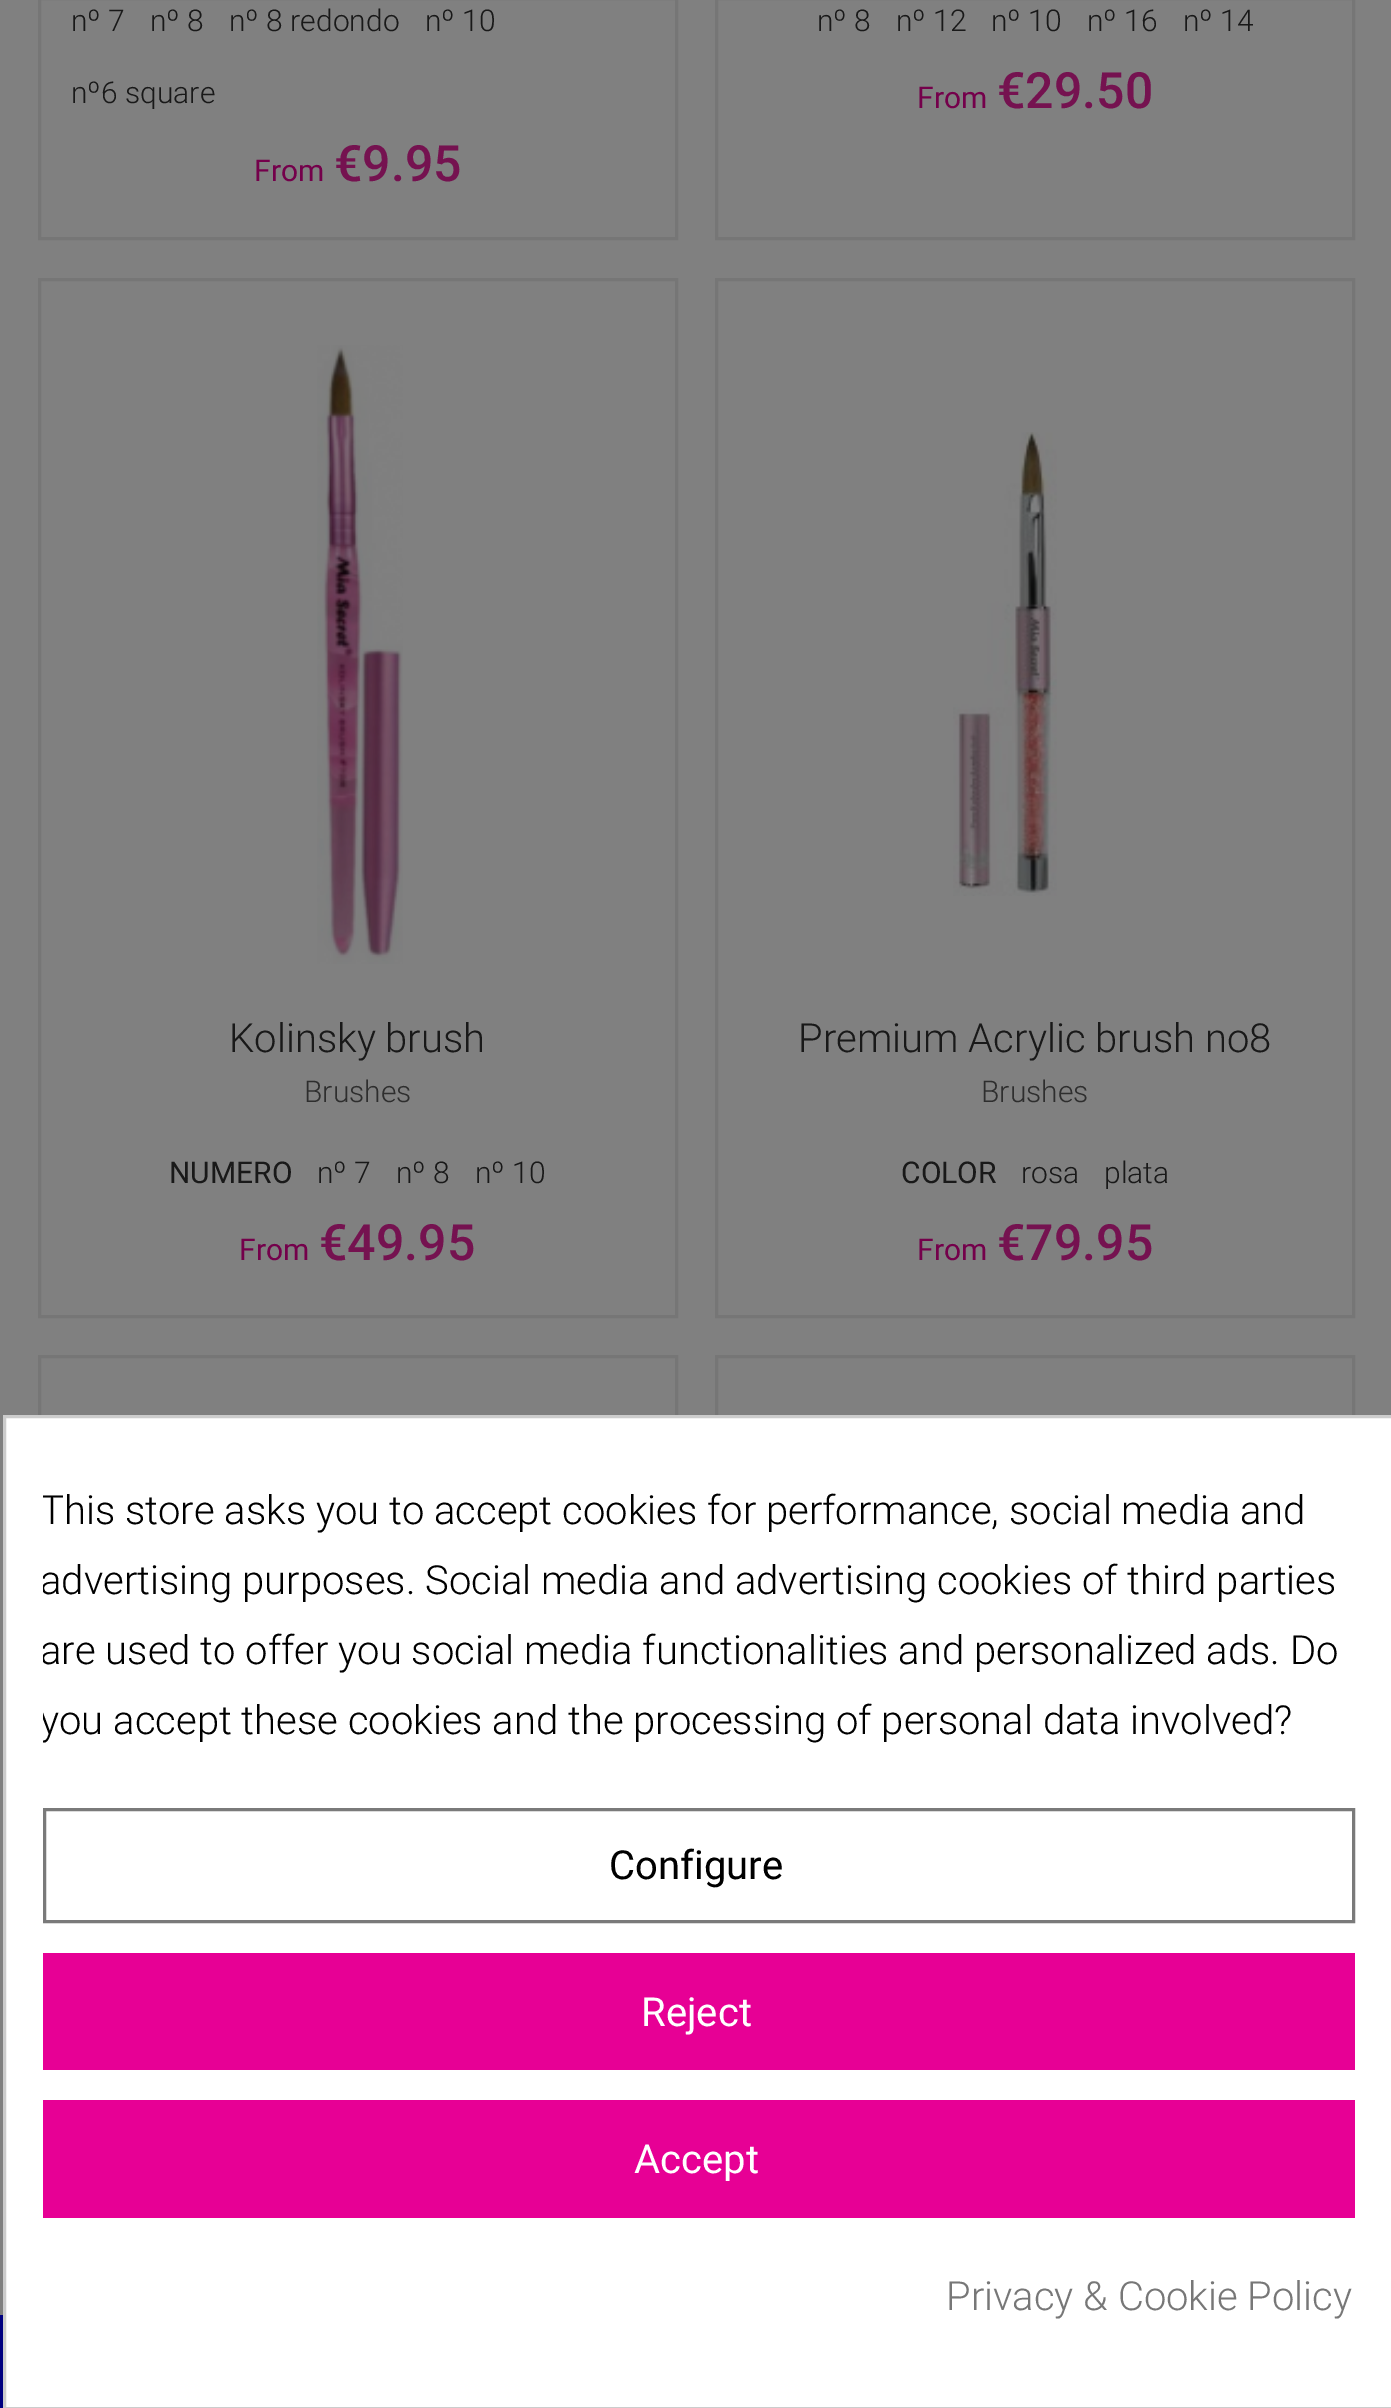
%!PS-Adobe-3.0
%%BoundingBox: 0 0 1391 2408
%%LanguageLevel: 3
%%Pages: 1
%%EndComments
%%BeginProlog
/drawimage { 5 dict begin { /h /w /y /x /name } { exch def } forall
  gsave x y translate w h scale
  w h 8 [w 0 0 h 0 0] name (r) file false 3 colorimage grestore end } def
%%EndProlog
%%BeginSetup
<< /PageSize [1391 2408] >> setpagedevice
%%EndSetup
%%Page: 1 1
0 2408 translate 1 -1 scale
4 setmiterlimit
0.502 setgray
0 0 1391 2408 rectfill
0.463 setgray
3 setlinewidth
39.5 -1.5 637 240 rectstroke
716.5 -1.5 637 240 rectstroke
39.5 279.5 637 1037 rectstroke
(images/1.raw) 317 345 86 619 drawimage
716.5 279.5 637 1037 rectstroke
(images/2.raw) 953 432 104 464 drawimage
39.5 1356.5 637 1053 rectstroke
716.5 1356.5 637 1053 rectstroke
1 setgray
newpath 4.5 1416.5 moveto 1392.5 1416.5 lineto 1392.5 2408.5 lineto 4.5 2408.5 lineto closepath gsave fill grestore
0.8 setgray
stroke
0.478 setgray
44.5 1809.5 1309 112 rectstroke
0.906 0 0.584 setrgbcolor
43 1953 1312 117 rectfill
43 2100 1312 118 rectfill
0 0 0.502 setrgbcolor
0 2315 3 93 rectfill
/Roboto-Light [30 0 0 -30 0 0] selectfont
0.098 setgray
71 31 moveto (nº 7) show
150 31 moveto (nº 8) show
229 31 moveto (nº 8 redondo) show
425 31 moveto (nº 10) show
71 103 moveto (nº6 square) show
/Roboto-Regular [30 0 0 -30 0 0] selectfont
0.455 0 0.294 setrgbcolor
254 181 moveto (From) show
/Roboto-Medium [50 0 0 -50 0 0] selectfont
0.459 0.071 0.314 setrgbcolor
334 181 moveto (€9.95) show
/Roboto-Light [30 0 0 -30 0 0] selectfont
0.098 setgray
817 31 moveto (nº 8) show
896 31 moveto (nº 12) show
991 31 moveto (nº 10) show
1087 31 moveto (nº 16) show
1183 31 moveto (nº 14) show
/Roboto-Regular [30 0 0 -30 0 0] selectfont
0.455 0 0.294 setrgbcolor
917 108 moveto (From) show
/Roboto-Medium [50 0 0 -50 0 0] selectfont
0.459 0.071 0.314 setrgbcolor
997 108 moveto (€29.50) show
/Roboto-Light [40 0 0 -40 0 0] selectfont
0.098 setgray
229 1052 moveto (Kolinsky brush) show
/Roboto-Light [30 0 0 -30 0 0] selectfont
0.18 setgray
304 1102 moveto (Brushes) show
/Roboto-Regular [30 0 0 -30 0 0] selectfont
0.098 setgray
169 1183 moveto (NUMERO) show
/Roboto-Light [30 0 0 -30 0 0] selectfont
317 1183 moveto (nº 7) show
396 1183 moveto (nº 8) show
475 1183 moveto (nº 10) show
/Roboto-Regular [30 0 0 -30 0 0] selectfont
0.455 0 0.294 setrgbcolor
239 1260 moveto (From) show
/Roboto-Medium [50 0 0 -50 0 0] selectfont
0.459 0.071 0.314 setrgbcolor
319 1260 moveto (€49.95) show
/Roboto-Light [40 0 0 -40 0 0] selectfont
0.098 setgray
798 1052 moveto (Premium Acrylic brush no8) show
/Roboto-Light [30 0 0 -30 0 0] selectfont
0.18 setgray
981 1102 moveto (Brushes) show
/Roboto-Regular [30 0 0 -30 0 0] selectfont
0.098 setgray
901 1183 moveto (COLOR) show
/Roboto-Light [30 0 0 -30 0 0] selectfont
1021 1183 moveto (rosa) show
1104 1183 moveto (plata) show
/Roboto-Regular [30 0 0 -30 0 0] selectfont
0.455 0 0.294 setrgbcolor
917 1260 moveto (From) show
/Roboto-Medium [50 0 0 -50 0 0] selectfont
0.459 0.071 0.314 setrgbcolor
997 1260 moveto (€79.95) show
gsave
43 1478 1312 280 rectclip
/Roboto-Light [40 0 0 -40 0 0] selectfont
0 setgray
40 1524 moveto (This store asks you to accept cookies for performance, social media and) show
40 1594 moveto (advertising purposes. Social media and advertising cookies of third parties) show
40 1664 moveto (are used to offer you social media functionalities and personalized ads. Do) show
40 1734 moveto (you accept these cookies and the processing of personal data involved?) show
grestore
/Roboto-Regular [40 0 0 -40 0 0] selectfont
0 setgray
609 1879 moveto (Configure) show
1 setgray
641 2026 moveto (Reject) show
634 2173 moveto (Accept) show
/Roboto-Light [40 0 0 -40 0 0] selectfont
0.467 setgray
946 2310 moveto (Privacy & Cookie Policy) show
showpage
%%EOF
